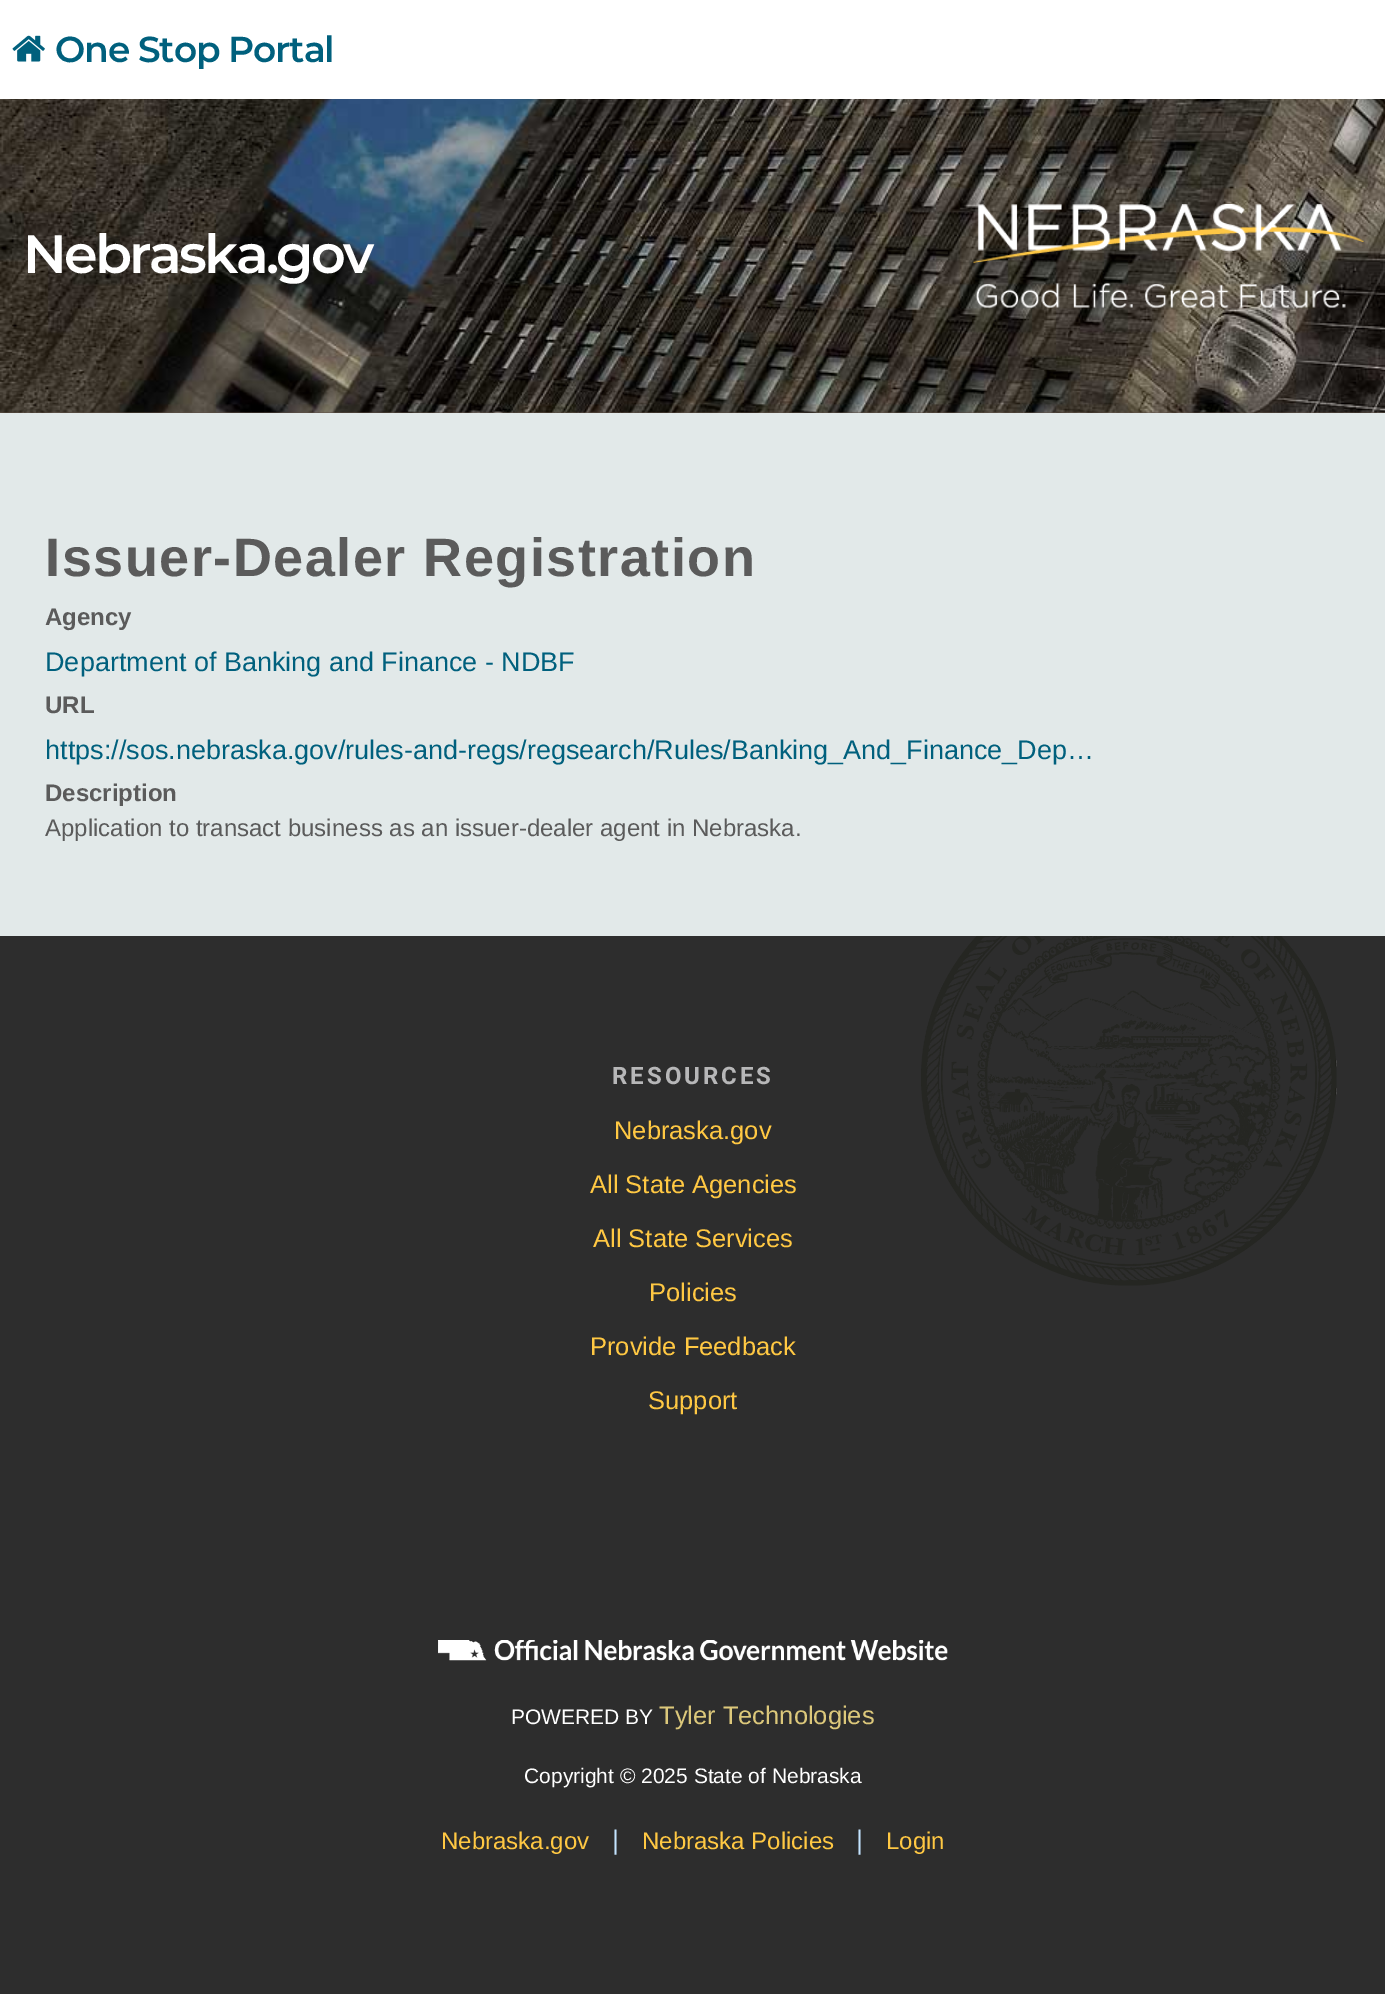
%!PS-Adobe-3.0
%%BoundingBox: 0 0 1385 1994
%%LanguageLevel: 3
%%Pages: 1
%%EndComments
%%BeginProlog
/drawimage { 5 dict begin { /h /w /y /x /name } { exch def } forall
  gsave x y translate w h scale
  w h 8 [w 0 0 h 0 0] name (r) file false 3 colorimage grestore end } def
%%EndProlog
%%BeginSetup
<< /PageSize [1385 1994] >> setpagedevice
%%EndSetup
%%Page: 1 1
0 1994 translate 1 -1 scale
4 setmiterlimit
0.886 0.914 0.914 setrgbcolor
0 0 1385 1994 rectfill
0.361 0.306 0.271 setrgbcolor
0 412 1385 1 rectfill
(images/1.raw) 0 99 1385 314 drawimage
1 setgray
0 0 1385 99 rectfill
(images/2.raw) 12 35 33 27 drawimage
(images/3.raw) 973 204 391 104 drawimage
0.176 setgray
0 936 1385 1058 rectfill
(images/4.raw) 921 936 416 350 drawimage
(images/5.raw) 438 1640 510 21 drawimage
/Montserrat-SemiBold [36 0 0 -36 0 0] selectfont
0 0.376 0.49 setrgbcolor
55 62 moveto -1.1 0 (One Stop Portal) ashow
/Montserrat-SemiBold [54 0 0 -54 0 0] selectfont
1 setgray
23 273 moveto -2.75 0 (Nebraska.gov) ashow
/LiberationSans-Bold [54 0 0 -54 0 0] selectfont
0.357 setgray
45 576 moveto 1.5 0 (Issuer-Dealer Registration) ashow
/LiberationSans-Bold [24 0 0 -24 0 0] selectfont
45 625 moveto (Agency) show
/LiberationSans-Regular [27 0 0 -27 0 0] selectfont
0 0.376 0.49 setrgbcolor
45 671 moveto (Department of Banking and Finance - NDBF) show
/LiberationSans-Bold [24 0 0 -24 0 0] selectfont
0.357 setgray
45 713 moveto (URL) show
/LiberationSans-Regular [27 0 0 -27 0 0] selectfont
0 0.376 0.49 setrgbcolor
45 759 moveto (https://sos.nebraska.gov/rules-and-regs/regsearch/Rules/Banking_And_Finance_Dep…) show
/LiberationSans-Bold [24 0 0 -24 0 0] selectfont
0.357 setgray
45 801 moveto (Description) show
/LiberationSans-Regular [24 0 0 -24 0 0] selectfont
45 836 moveto (Application to transact business as an issuer-dealer agent in Nebraska.) show
/Roboto-Bold [24 0 0 -24 0 0] selectfont
0.718 0.718 0.722 setrgbcolor
612 1084 moveto 3 0 (RESOURCES) ashow
/LiberationSans-Regular [25.5 0 0 -25.5 0 0] selectfont
1 0.784 0.263 setrgbcolor
614 1139 moveto (Nebraska.gov) show
590 1193 moveto (All State Agencies) show
593 1247 moveto (All State Services) show
649 1301 moveto (Policies) show
590 1355 moveto (Provide Feedback) show
648 1409 moveto (Support) show
/LiberationSans-Regular [21 0 0 -21 0 0] selectfont
1 setgray
511 1724 moveto (POWERED BY) show
/LiberationSans-Regular [25.5 0 0 -25.5 0 0] selectfont
0.863 0.784 0.482 setrgbcolor
659 1724 moveto (Tyler Technologies) show
/LiberationSans-Regular [21 0 0 -21 0 0] selectfont
1 setgray
524 1783 moveto (Copyright © 2025 State of Nebraska) show
/LiberationSans-Regular [24 0 0 -24 0 0] selectfont
1 0.784 0.263 setrgbcolor
441 1849 moveto (Nebraska.gov) show
/LiberationSans-Regular [27 0 0 -27 0 0] selectfont
0.765 0.894 1 setrgbcolor
612 1849 moveto (|) show
/LiberationSans-Regular [24 0 0 -24 0 0] selectfont
1 0.784 0.263 setrgbcolor
642 1849 moveto (Nebraska Policies) show
/LiberationSans-Regular [27 0 0 -27 0 0] selectfont
0.765 0.894 1 setrgbcolor
856 1849 moveto (|) show
/LiberationSans-Regular [24 0 0 -24 0 0] selectfont
1 0.784 0.263 setrgbcolor
886 1849 moveto (Login) show
showpage
%%EOF
